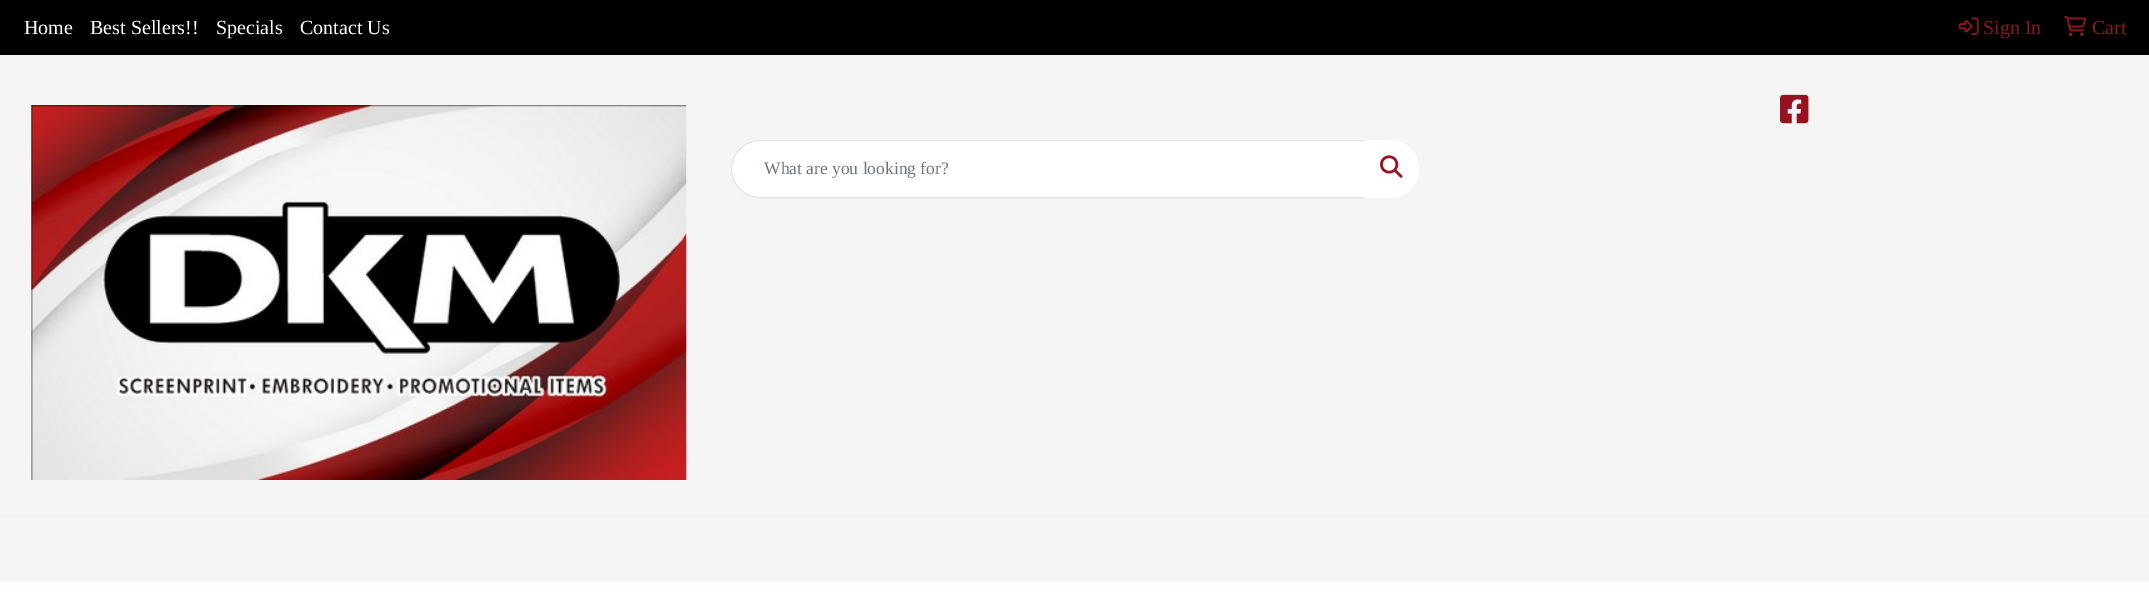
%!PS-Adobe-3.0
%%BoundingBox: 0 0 2149 612
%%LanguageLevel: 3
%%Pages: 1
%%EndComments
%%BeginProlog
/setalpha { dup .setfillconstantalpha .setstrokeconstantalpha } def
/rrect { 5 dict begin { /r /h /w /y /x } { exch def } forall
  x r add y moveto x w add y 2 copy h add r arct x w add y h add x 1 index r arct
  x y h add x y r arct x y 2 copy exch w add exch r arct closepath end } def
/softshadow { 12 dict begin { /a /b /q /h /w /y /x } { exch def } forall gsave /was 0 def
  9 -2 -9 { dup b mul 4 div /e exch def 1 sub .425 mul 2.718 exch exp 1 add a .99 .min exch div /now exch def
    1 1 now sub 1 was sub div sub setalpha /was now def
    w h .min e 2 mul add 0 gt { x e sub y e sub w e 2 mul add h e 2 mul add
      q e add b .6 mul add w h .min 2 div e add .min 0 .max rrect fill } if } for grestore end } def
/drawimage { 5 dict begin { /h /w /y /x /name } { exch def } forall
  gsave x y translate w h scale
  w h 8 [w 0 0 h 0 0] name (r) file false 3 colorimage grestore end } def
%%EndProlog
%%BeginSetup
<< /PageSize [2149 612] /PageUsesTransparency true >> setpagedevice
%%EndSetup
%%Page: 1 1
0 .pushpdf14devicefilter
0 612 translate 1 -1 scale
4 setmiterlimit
1 setgray
0 0 2149 612 rectfill
0.961 setgray
0 55 2149 523 rectfill
0 setgray
0 0 2149 55 rectfill
(images/1.raw) 1958 17 21 18 drawimage
(images/2.raw) 2063 16 23 21 drawimage
(images/3.raw) 31 105 656 375 drawimage
1 setgray
newpath 760 140.5 moveto 1365.5 140.5 lineto 1365.5 197.5 lineto 760 197.5 lineto 744.5 197.5 731.5 184.5 731.5 169 curveto 731.5 153.5 744.5 140.5 760 140.5 curveto closepath gsave fill grestore
0.894 setgray
stroke
1 setgray
newpath 1365 141 moveto 1390.5 141 lineto 1405.5 141 1418 153.5 1418 168.5 curveto 1418 183.5 1405.5 196 1390.5 196 curveto 1365 196 lineto closepath fill
newpath 1365 140 moveto 1390 140 lineto 1406 140 1419 153 1419 169 curveto 1419 185 1406 198 1390 198 curveto 1365 198 lineto closepath 1365 141 moveto 1390 141 lineto 1405 141 1418 154 1418 169 curveto 1418 184 1405 196 1390 196 curveto 1365 196 lineto closepath eofill
(images/4.raw) 1380 155 23 23 drawimage
(images/5.raw) 1780 94 29 30 drawimage
gsave
newpath 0 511 moveto 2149 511 lineto 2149 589 lineto 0 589 lineto closepath 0 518 moveto 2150 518 lineto 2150 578 lineto 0 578 lineto closepath eoclip newpath
0 setgray
0 520 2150 60 0 2.5 0.07 softshadow
grestore
/LiberationSerif-Regular [20 0 0 -20 0 0] selectfont
24 34 moveto (Home) show
90 34 moveto (Best Sellers!!) show
216 34 moveto (Specials) show
300 34 moveto (Contact Us) show
0.537 0.098 0.11 setrgbcolor
1983 34 moveto (Sign In) show
2092 34 moveto (Cart) show
/LiberationSerif-Regular [17.5 0 0 -17.5 0 0] selectfont
0.424 0.459 0.49 setrgbcolor
764 174 moveto (What are you looking for?) show
.poppdf14devicefilter showpage
%%EOF
